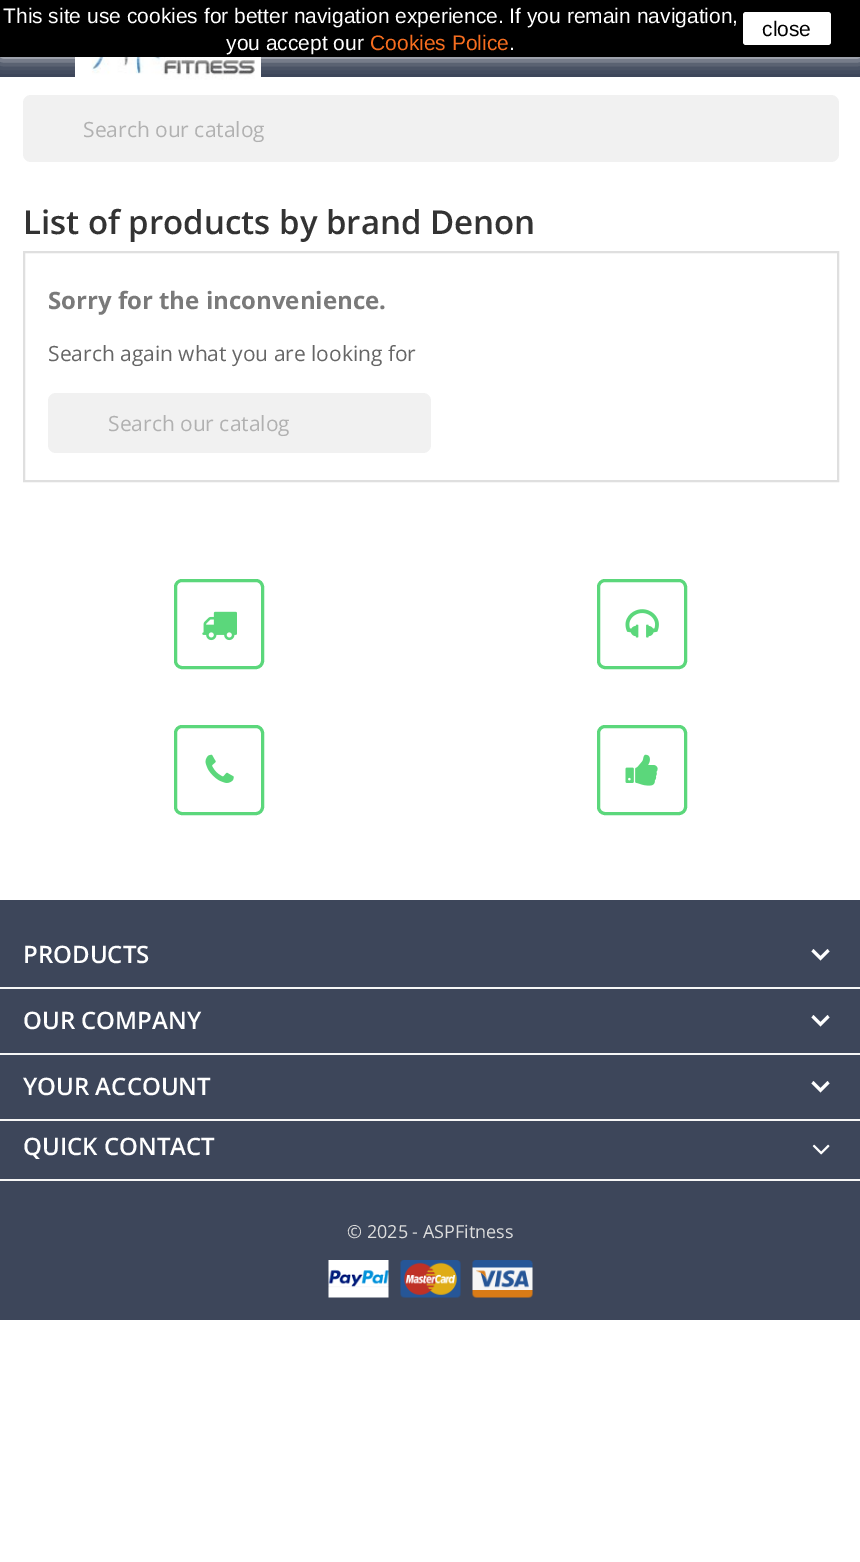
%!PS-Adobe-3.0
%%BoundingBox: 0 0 860 1562
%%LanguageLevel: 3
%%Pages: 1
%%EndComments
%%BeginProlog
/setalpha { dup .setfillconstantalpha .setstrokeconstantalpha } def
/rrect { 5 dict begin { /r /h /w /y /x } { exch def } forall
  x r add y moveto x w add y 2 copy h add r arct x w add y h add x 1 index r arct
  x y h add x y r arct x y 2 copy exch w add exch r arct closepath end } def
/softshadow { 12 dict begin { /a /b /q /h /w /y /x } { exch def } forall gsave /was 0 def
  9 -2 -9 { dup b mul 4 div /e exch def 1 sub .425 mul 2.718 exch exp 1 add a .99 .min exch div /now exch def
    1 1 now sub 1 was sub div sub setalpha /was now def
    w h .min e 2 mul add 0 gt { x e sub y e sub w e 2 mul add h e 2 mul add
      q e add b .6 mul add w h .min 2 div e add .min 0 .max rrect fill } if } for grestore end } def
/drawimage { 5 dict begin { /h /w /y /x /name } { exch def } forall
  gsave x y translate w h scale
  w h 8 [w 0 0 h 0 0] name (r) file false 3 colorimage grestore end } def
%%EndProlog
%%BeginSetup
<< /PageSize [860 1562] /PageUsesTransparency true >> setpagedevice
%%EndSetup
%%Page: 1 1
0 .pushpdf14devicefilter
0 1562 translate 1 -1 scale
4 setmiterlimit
1 setgray
0 0 860 1562 rectfill
0.239 0.275 0.353 setrgbcolor
0 900 860 420 rectfill
0 57 860 20 rectfill
(images/9.raw) 75 57 186 23 drawimage
1 setgray
0 0 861 57 0 7.5 1 softshadow
0 setgray
0 0 860 57 rectfill
1 setgray
743 12 88 33 3 rrect fill
0.965 setgray
0 987 860 2 rectfill
1 setgray
newpath 813.5 949 moveto 820.5 956 lineto 827.5 949 lineto 829.5 951.5 lineto 820.5 960.5 lineto 811.5 951.5 lineto closepath fill
0.965 setgray
0 1053 860 2 rectfill
1 setgray
newpath 813.5 1015 moveto 820.5 1022 lineto 827.5 1015 lineto 829.5 1017.5 lineto 820.5 1026.5 lineto 811.5 1017.5 lineto closepath fill
0.965 setgray
0 1119 860 2 rectfill
1 setgray
newpath 813.5 1081 moveto 820.5 1088 lineto 827.5 1081 lineto 829.5 1083.5 lineto 820.5 1092.5 lineto 811.5 1083.5 lineto closepath fill
0.965 setgray
0 1179 860 2 rectfill
(images/1.raw) 812 1144 18 11 drawimage
(images/2.raw) 328 1260 61 38 drawimage
(images/3.raw) 400 1260 61 38 drawimage
(images/4.raw) 472 1260 61 38 drawimage
0.357 0.843 0.482 setrgbcolor
3 setlinewidth
175.5 580.5 87 87 6.5 rrect stroke
(images/5.raw) 202 611 35 30 drawimage
598.5 580.5 87 87 6.5 rrect stroke
(images/6.raw) 625 609 34 29 drawimage
175.5 726.5 87 87 6.5 rrect stroke
(images/7.raw) 205 754 29 29 drawimage
598.5 726.5 87 87 6.5 rrect stroke
(images/8.raw) 625 754 33 32 drawimage
0.945 setgray
23 95 816 67 8 rrect fill
0.875 setgray
2 setlinewidth
24 252 814 229 rectstroke
0.945 setgray
48 393 383 60 8 rrect fill
/LiberationSans-Regular [21 0 0 -21 0 0] selectfont
1 setgray
3 23 moveto (This site use cookies for better navigation experience. If you remain navigation,) show
226 50 moveto (you accept our) show
0.965 0.427 0.122 setrgbcolor
370 50 moveto (Cookies Police) show
1 setgray
509 50 moveto (.) show
0 setgray
762 36 moveto (close) show
/OpenSans-SemiBold [24 0 0 -24 0 0] selectfont
1 setgray
23 963 moveto (PRODUCTS) show
23 1029 moveto (OUR COMPANY) show
23 1095 moveto (YOUR ACCOUNT) show
23 1155 moveto (QUICK CONTACT) show
/OpenSans-Regular [18 0 0 -18 0 0] selectfont
0.867 setgray
347 1238 moveto (© 2025 - ASPFitness) show
/OpenSans-Regular [21 0 0 -21 0 0] selectfont
0.694 setgray
83 137 moveto (Search our catalog) show
/OpenSans-SemiBold [33 0 0 -33 0 0] selectfont
0.2 setgray
23 234 moveto (List of products by brand Denon) show
/OpenSans-Bold [24 0 0 -24 0 0] selectfont
0.478 setgray
48 309 moveto (Sorry for the inconvenience.) show
/OpenSans-Regular [21 0 0 -21 0 0] selectfont
0.4 setgray
48 361 moveto (Search again what you are looking for) show
0.694 setgray
108 431 moveto (Search our catalog) show
.poppdf14devicefilter showpage
%%EOF
